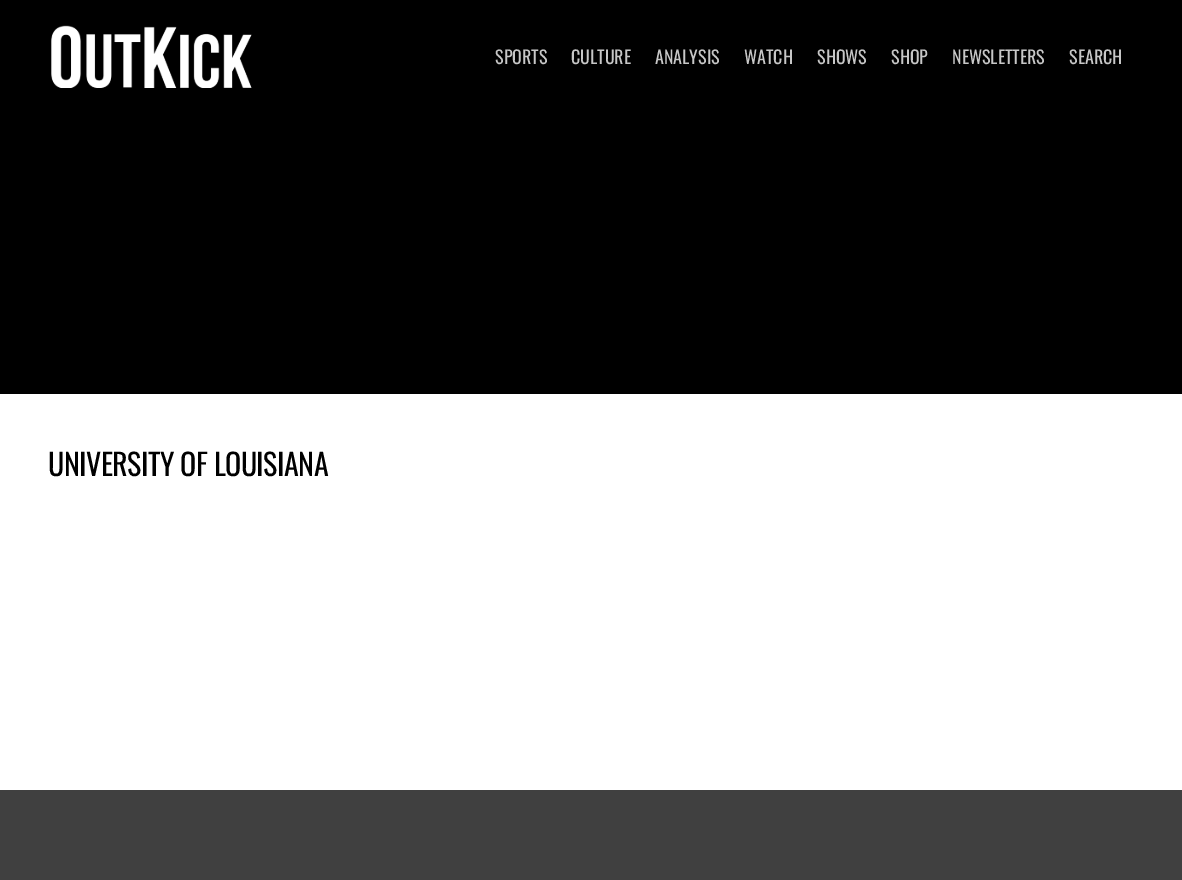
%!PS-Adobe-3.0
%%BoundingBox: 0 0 1182 880
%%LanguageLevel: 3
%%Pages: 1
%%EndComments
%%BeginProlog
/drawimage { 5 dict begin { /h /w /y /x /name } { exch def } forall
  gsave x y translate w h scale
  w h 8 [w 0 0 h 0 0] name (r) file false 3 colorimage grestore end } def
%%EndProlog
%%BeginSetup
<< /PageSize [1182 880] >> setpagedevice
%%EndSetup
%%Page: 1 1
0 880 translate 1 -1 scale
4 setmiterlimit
1 setgray
0 0 1182 880 rectfill
0 setgray
0 0 1182 394 rectfill
(images/1.raw) 51 25 201 63 drawimage
0.251 setgray
0 790 1182 90 rectfill
/Oswald-Regular [18 0 0 -18 0 0] selectfont
0.78 setgray
495 64 moveto (SPORTS) show
571 64 moveto (CULTURE) show
655 64 moveto (ANALYSIS) show
744 64 moveto (WATCH) show
817 64 moveto (SHOWS) show
891 64 moveto (SHOP) show
952 64 moveto (NEWSLETTERS) show
1069 64 moveto (SEARCH) show
/Oswald-Regular [30 0 0 -30 0 0] selectfont
0 setgray
48 476 moveto -0.5 0 (UNIVERSITY OF LOUISIANA) ashow
showpage
%%EOF
